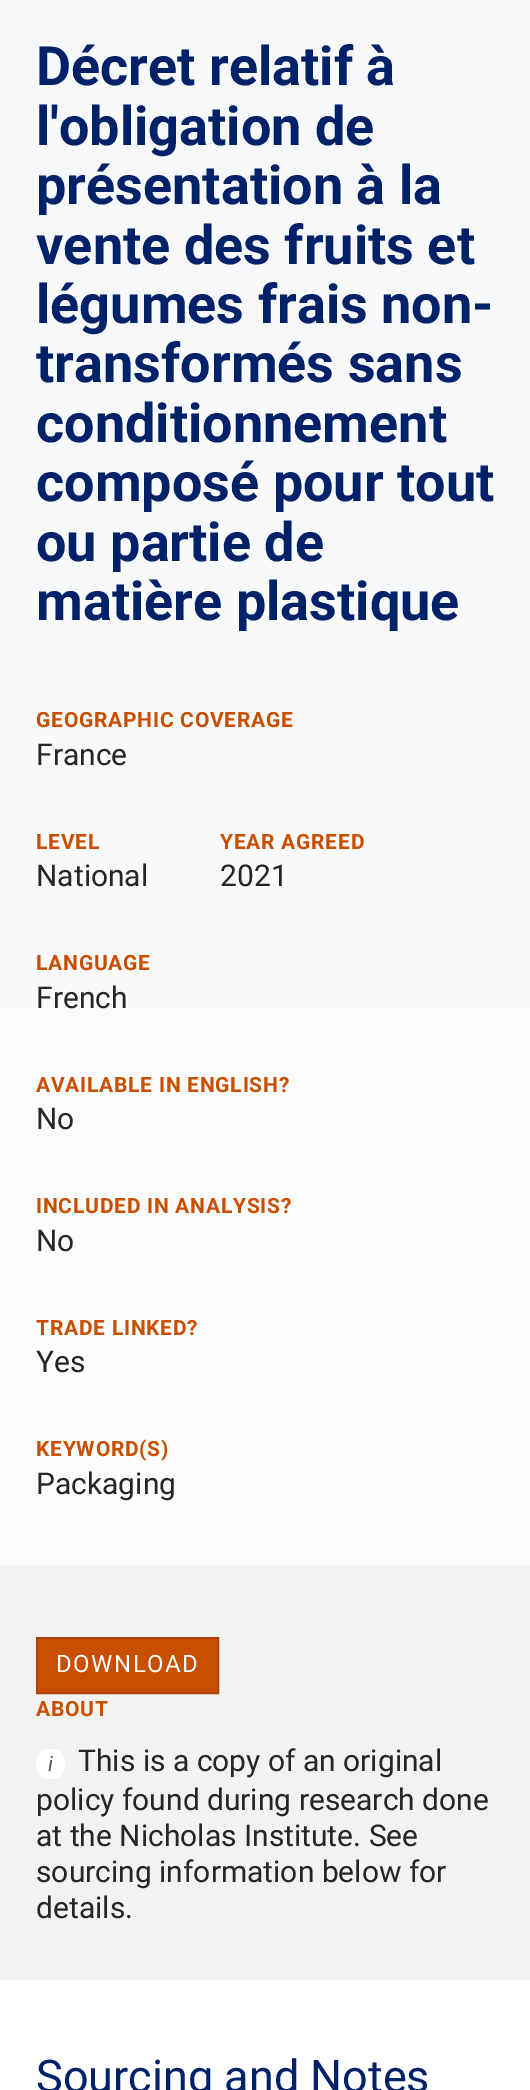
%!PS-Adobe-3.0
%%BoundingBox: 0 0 530 2090
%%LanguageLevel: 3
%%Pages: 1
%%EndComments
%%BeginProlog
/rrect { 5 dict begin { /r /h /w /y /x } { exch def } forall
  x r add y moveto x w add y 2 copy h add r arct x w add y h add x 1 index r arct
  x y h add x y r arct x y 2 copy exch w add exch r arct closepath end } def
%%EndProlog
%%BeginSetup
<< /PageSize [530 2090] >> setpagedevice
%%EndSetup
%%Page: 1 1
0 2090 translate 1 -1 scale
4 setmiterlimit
1 setgray
0 0 530 2090 rectfill
gsave newpath 0 0 moveto 530 0 lineto 530 1620 lineto 0 1620 lineto closepath clip newpath
<< /ShadingType 2 /ColorSpace /DeviceRGB /Coords [265 -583 266 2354] /Extend [true true] /Function << /FunctionType 2 /Domain [0 1] /C0 [0.961 0.965 0.973] /C1 [1 1 1] /N 1 >> >> shfill grestore
0.953 0.949 0.945 setrgbcolor
0 1565 530 415 rectfill
0.784 0.306 0 setrgbcolor
newpath 37 1638 moveto 218 1638 lineto 218 1693 lineto 37 1693 lineto closepath gsave fill grestore
0.686 0.267 0 setrgbcolor
2 setlinewidth
stroke
1 setgray
36 1749 29 30 12 rrect fill
/Roboto-Bold [54 0 0 -54 0 0] selectfont
0.004 0.129 0.412 setrgbcolor
36 85 moveto (Décret relatif à) show
36 145 moveto (l'obligation de) show
36 204 moveto (présentation à la) show
36 264 moveto (vente des fruits et) show
36 323 moveto (légumes frais non-) show
36 382 moveto (transformés sans) show
36 442 moveto (conditionnement) show
36 501 moveto (composé pour tout) show
36 561 moveto (ou partie de) show
36 620 moveto (matière plastique) show
/Roboto-Bold [21 0 0 -21 0 0] selectfont
0.784 0.306 0 setrgbcolor
36 727 moveto 0.75 0 (GEOGRAPHIC COVERAGE) ashow
/Roboto-Regular [30 0 0 -30 0 0] selectfont
0.149 setgray
36 765 moveto (France) show
/Roboto-Bold [21 0 0 -21 0 0] selectfont
0.784 0.306 0 setrgbcolor
36 849 moveto 0.75 0 (LEVEL) ashow
/Roboto-Regular [30 0 0 -30 0 0] selectfont
0.149 setgray
36 886 moveto (National) show
/Roboto-Bold [21 0 0 -21 0 0] selectfont
0.784 0.306 0 setrgbcolor
220 849 moveto 0.75 0 (YEAR AGREED) ashow
/Roboto-Regular [30 0 0 -30 0 0] selectfont
0.149 setgray
220 886 moveto (2021) show
/Roboto-Bold [21 0 0 -21 0 0] selectfont
0.784 0.306 0 setrgbcolor
36 970 moveto 0.75 0 (LANGUAGE) ashow
/Roboto-Regular [30 0 0 -30 0 0] selectfont
0.149 setgray
36 1008 moveto (French) show
/Roboto-Bold [21 0 0 -21 0 0] selectfont
0.784 0.306 0 setrgbcolor
36 1092 moveto 0.75 0 (AVAILABLE IN ENGLISH?) ashow
/Roboto-Regular [30 0 0 -30 0 0] selectfont
0.149 setgray
36 1129 moveto (No) show
/Roboto-Bold [21 0 0 -21 0 0] selectfont
0.784 0.306 0 setrgbcolor
36 1213 moveto 0.75 0 (INCLUDED IN ANALYSIS?) ashow
/Roboto-Regular [30 0 0 -30 0 0] selectfont
0.149 setgray
36 1251 moveto (No) show
/Roboto-Bold [21 0 0 -21 0 0] selectfont
0.784 0.306 0 setrgbcolor
36 1335 moveto 0.75 0 (TRADE LINKED?) ashow
/Roboto-Regular [30 0 0 -30 0 0] selectfont
0.149 setgray
36 1372 moveto (Yes) show
/Roboto-Bold [21 0 0 -21 0 0] selectfont
0.784 0.306 0 setrgbcolor
36 1456 moveto 0.75 0 (KEYWORD\(S\)) ashow
/Roboto-Regular [30 0 0 -30 0 0] selectfont
0.149 setgray
36 1494 moveto (Packaging) show
/Roboto-Regular [24 0 0 -24 0 0] selectfont
1 setgray
56 1672 moveto 1.5 0 (DOWNLOAD) ashow
/Roboto-Bold [21 0 0 -21 0 0] selectfont
0.784 0.306 0 setrgbcolor
36 1716 moveto 0.75 0 (ABOUT) ashow
/Roboto-Italic [21 0 0 -21 0 0] selectfont
0.322 setgray
48 1771 moveto (i) show
/Roboto-Regular [30 0 0 -30 0 0] selectfont
0.149 setgray
78 1771 moveto (This is a copy of an original) show
36 1810 moveto (policy found during research done) show
36 1846 moveto (at the Nicholas Institute. See) show
36 1882 moveto (sourcing information below for) show
36 1918 moveto (details.) show
/Roboto-Regular [45 0 0 -45 0 0] selectfont
0.004 0.129 0.412 setrgbcolor
36 2092 moveto (Sourcing and Notes) show
showpage
%%EOF
